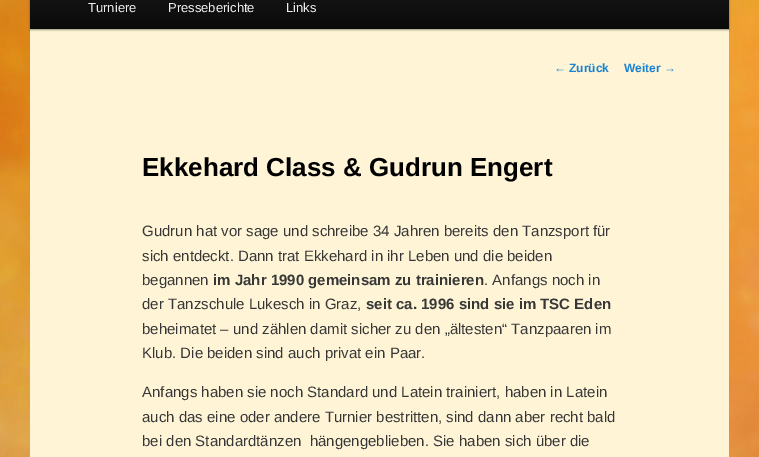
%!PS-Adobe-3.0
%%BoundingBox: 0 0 759 457
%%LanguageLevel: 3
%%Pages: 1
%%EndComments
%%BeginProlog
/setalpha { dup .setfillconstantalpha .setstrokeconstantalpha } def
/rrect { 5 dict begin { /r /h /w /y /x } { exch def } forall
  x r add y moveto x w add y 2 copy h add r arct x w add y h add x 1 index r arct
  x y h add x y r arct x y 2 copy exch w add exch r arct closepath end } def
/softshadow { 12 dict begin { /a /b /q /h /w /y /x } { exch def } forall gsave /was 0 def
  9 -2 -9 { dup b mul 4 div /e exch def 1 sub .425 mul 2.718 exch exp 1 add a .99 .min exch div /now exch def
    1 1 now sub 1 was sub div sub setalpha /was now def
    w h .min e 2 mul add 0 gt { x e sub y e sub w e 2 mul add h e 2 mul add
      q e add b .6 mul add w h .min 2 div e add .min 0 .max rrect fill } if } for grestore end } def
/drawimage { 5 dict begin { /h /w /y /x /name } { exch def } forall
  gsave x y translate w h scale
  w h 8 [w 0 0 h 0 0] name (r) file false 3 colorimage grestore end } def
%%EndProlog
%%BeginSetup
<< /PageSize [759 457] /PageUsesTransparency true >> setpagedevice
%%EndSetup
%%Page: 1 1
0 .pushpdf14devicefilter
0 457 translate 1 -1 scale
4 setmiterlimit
1 setgray
0 0 759 457 rectfill
(images/1.raw) 0 0 759 457 drawimage
1 0.961 0.839 setrgbcolor
30 29 699 428 rectfill
0 setgray
30 -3 699 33 0 1 0.4 softshadow
gsave newpath 30 0 moveto 729 0 lineto 729 29 lineto 30 29 lineto closepath clip newpath
<< /ShadingType 2 /ColorSpace /DeviceRGB /Coords [380 -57 380 29] /Extend [true true] /Function << /FunctionType 2 /Domain [0 1] /C0 [0.145 0.145 0.145] /C1 [0.039 0.039 0.039] /N 1 >> >> shfill grestore
/LiberationSans-Regular [13 0 0 -13 0 0] selectfont
0.933 setgray
88 12 moveto (Turniere) show
168 12 moveto (Presseberichte) show
286 12 moveto (Links) show
/LiberationSans-Regular [12 0 0 -12 0 0] selectfont
0.098 0.51 0.82 setrgbcolor
554 72 moveto (←) show
/LiberationSans-Bold [12 0 0 -12 0 0] selectfont
569 72 moveto (Zurück) show
624 72 moveto (Weiter) show
/LiberationSans-Regular [12 0 0 -12 0 0] selectfont
664 72 moveto (→) show
/LiberationSans-Bold [26 0 0 -26 0 0] selectfont
0 setgray
142 176 moveto (Ekkehard Class & Gudrun Engert) show
/LiberationSans-Regular [15 0 0 -15 0 0] selectfont
0.216 setgray
142 236 moveto (Gudrun hat vor sage und schreibe 34 Jahren bereits den Tanzsport für) show
142 261 moveto (sich entdeckt. Dann trat Ekkehard in ihr Leben und die beiden) show
142 285 moveto (begannen) show
/LiberationSans-Bold [15 0 0 -15 0 0] selectfont
213 285 moveto (im Jahr 1990 gemeinsam zu trainieren) show
/LiberationSans-Regular [15 0 0 -15 0 0] selectfont
484 285 moveto (. Anfangs noch in) show
142 309 moveto (der Tanzschule Lukesch in Graz,) show
/LiberationSans-Bold [15 0 0 -15 0 0] selectfont
366 309 moveto (seit ca. 1996 sind sie im TSC Eden) show
/LiberationSans-Regular [15 0 0 -15 0 0] selectfont
142 334 moveto (beheimatet – und zählen damit sicher zu den „ältesten“ Tanzpaaren im) show
142 358 moveto (Klub. Die beiden sind auch privat ein Paar.) show
142 397 moveto (Anfangs haben sie noch Standard und Latein trainiert, haben in Latein) show
142 422 moveto (auch das eine oder andere Turnier bestritten, sind dann aber recht bald) show
142 446 moveto (bei den Standardtänzen  hängengeblieben. Sie haben sich über die) show
.poppdf14devicefilter showpage
%%EOF
